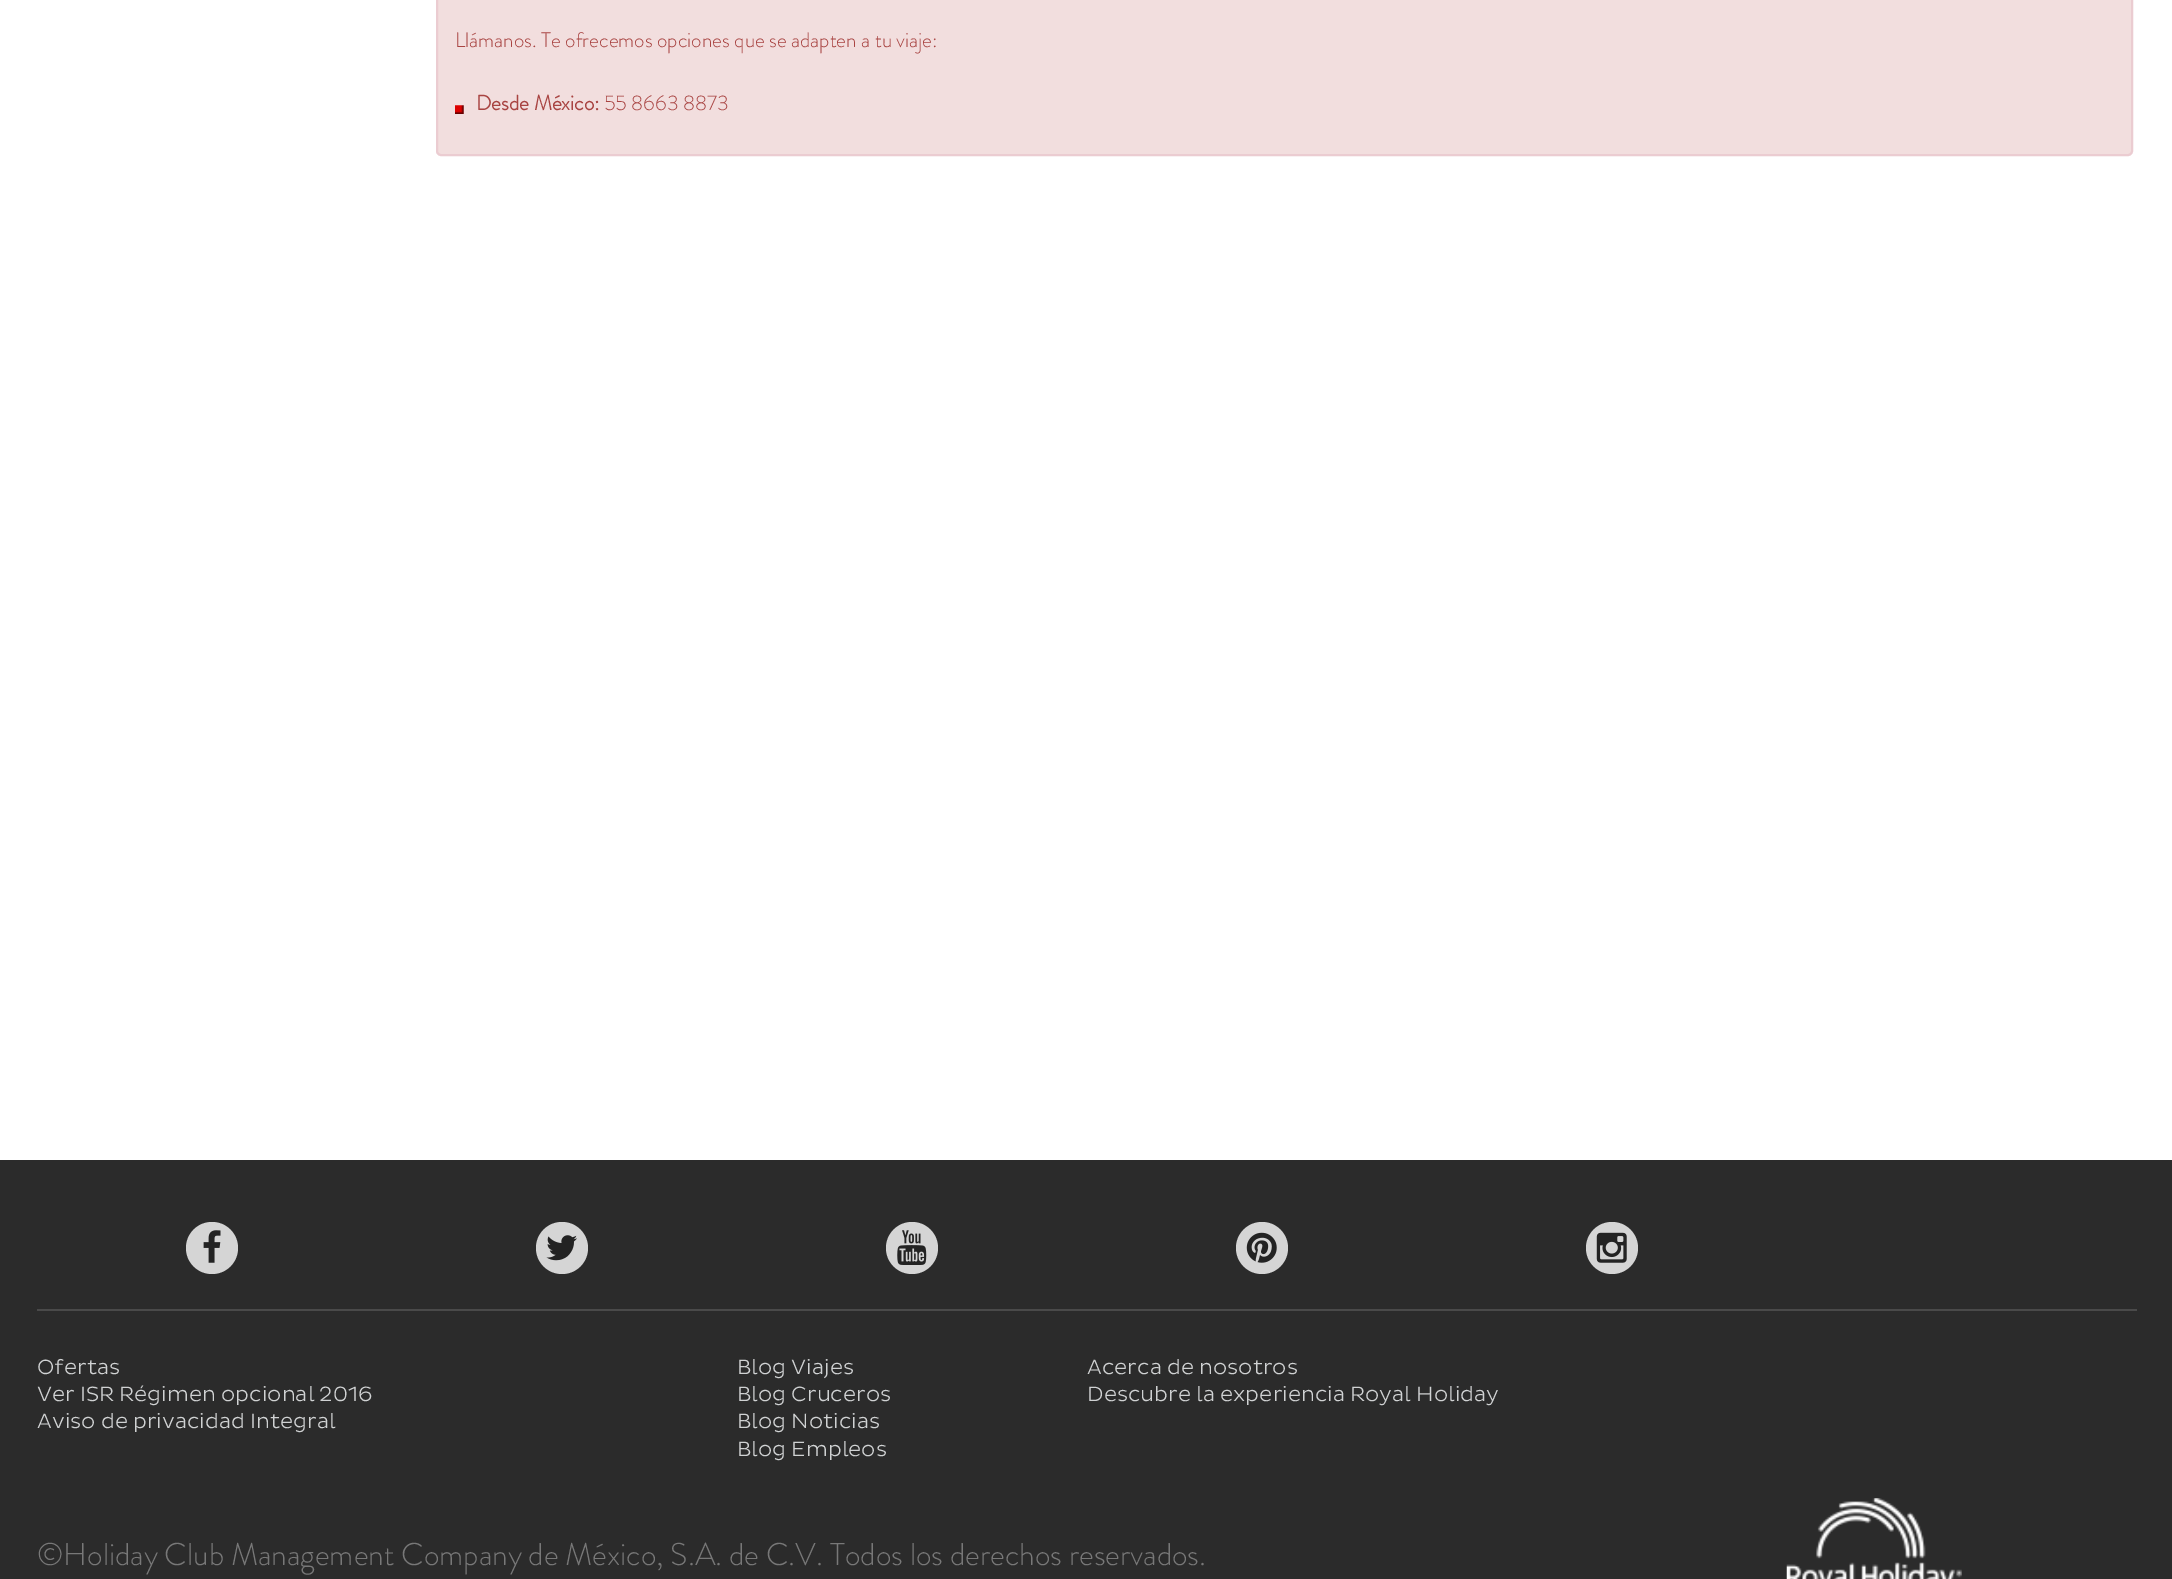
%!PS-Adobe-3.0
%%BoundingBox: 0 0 2172 1579
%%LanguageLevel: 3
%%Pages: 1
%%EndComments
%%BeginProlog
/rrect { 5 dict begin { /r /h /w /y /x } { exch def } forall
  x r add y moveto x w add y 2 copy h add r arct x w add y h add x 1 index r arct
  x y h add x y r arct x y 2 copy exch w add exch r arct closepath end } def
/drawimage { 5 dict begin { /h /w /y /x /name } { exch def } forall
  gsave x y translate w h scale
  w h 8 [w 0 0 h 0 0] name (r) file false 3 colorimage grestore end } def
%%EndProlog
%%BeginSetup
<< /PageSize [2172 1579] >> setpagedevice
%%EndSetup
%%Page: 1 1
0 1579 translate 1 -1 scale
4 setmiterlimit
1 setgray
0 0 2172 1579 rectfill
0.949 0.871 0.871 setrgbcolor
437 -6 1695 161 4 rrect gsave fill grestore
0.922 0.8 0.82 setrgbcolor
2 setlinewidth
stroke
(images/1.raw) 455 105 9 9 drawimage
0.169 setgray
0 1160 2172 419 rectfill
0.835 setgray
newpath 212 1248 26 0 360 arc closepath fill
(images/2.raw) 203 1230 18 33 drawimage
newpath 562 1248 26 0 360 arc closepath fill
(images/3.raw) 546 1235 31 26 drawimage
newpath 912 1248 26 0 360 arc closepath fill
(images/4.raw) 897 1230 30 35 drawimage
newpath 1262 1248 26 0 360 arc closepath fill
(images/5.raw) 1246 1232 31 31 drawimage
newpath 1612 1248 26 0 360 arc closepath fill
(images/6.raw) 1596 1232 31 31 drawimage
0.29 setgray
37 1309 2100 2 rectfill
(images/7.raw) 1786 1498 176 81 drawimage
/BrandonGrotesque-Light [21 0 0 -21 0 0] selectfont
0.663 0.267 0.259 setrgbcolor
455 47 moveto (Llámanos. Te ofrecemos opciones que se adapten a tu viaje:) show
/BrandonGrotesque-Bold [21 0 0 -21 0 0] selectfont
476 110 moveto (Desde México:) show
/BrandonGrotesque-Light [21 0 0 -21 0 0] selectfont
604 110 moveto (55 8663 8873) show
/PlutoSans-Light [21 0 0 -21 0 0] selectfont
0.816 0.824 0.827 setrgbcolor
37 1374 moveto (Ofertas) show
37 1401 moveto (Ver ISR Régimen opcional 2016) show
37 1428 moveto (Aviso de privacidad Integral) show
737 1374 moveto (Blog Viajes) show
737 1401 moveto (Blog Cruceros) show
737 1428 moveto (Blog Noticias) show
737 1456 moveto (Blog Empleos) show
1087 1374 moveto (Acerca de nosotros) show
1087 1401 moveto (Descubre la experiencia Royal Holiday) show
/BrandonGrotesque-Light [31.5 0 0 -31.5 0 0] selectfont
0.471 setgray
37 1565 moveto (©Holiday Club Management Company de México, S.A. de C.V. Todos los derechos reservados.) show
showpage
%%EOF
